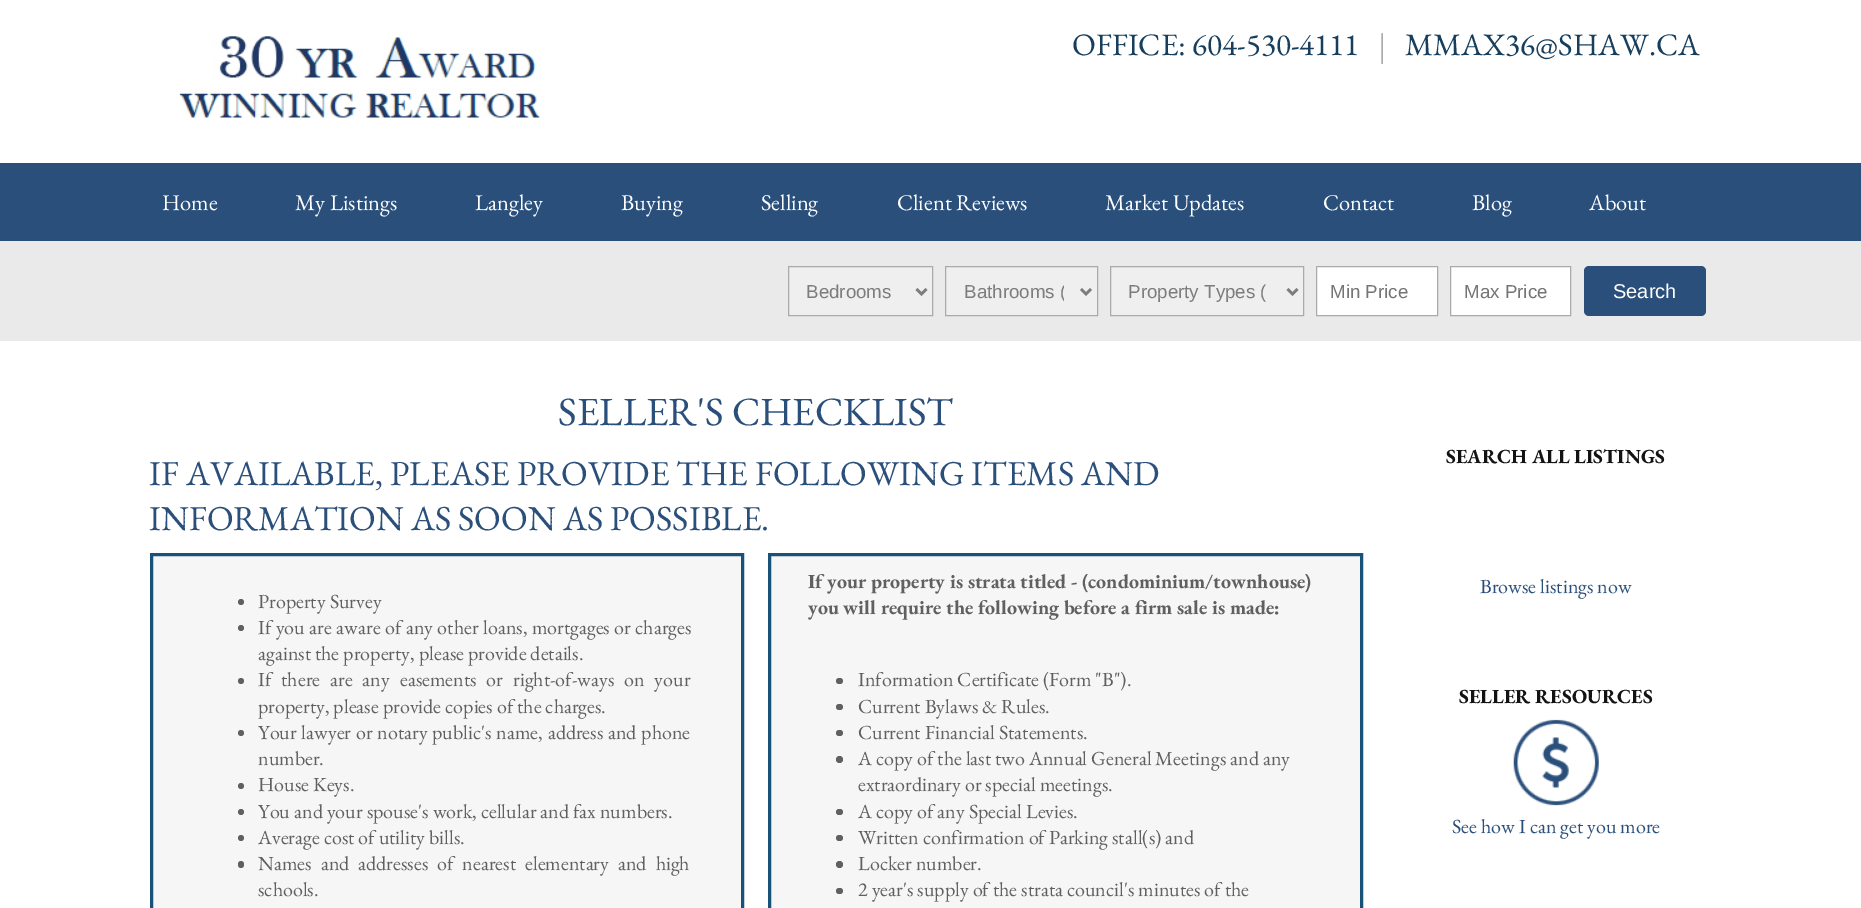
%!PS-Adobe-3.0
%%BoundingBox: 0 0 1861 908
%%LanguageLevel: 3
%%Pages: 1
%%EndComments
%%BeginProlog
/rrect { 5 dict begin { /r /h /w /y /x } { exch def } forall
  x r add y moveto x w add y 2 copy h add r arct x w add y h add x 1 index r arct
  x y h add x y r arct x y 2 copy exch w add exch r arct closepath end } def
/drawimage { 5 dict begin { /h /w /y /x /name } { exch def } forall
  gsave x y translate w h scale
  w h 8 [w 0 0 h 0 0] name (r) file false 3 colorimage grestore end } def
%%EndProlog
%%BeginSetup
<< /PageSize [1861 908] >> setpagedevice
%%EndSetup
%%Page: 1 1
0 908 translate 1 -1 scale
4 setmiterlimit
1 setgray
0 0 1861 908 rectfill
(images/1.raw) 179 36 362 82 drawimage
0.165 0.31 0.482 setrgbcolor
0 163 1861 78 rectfill
0.918 setgray
0 241 1861 100 rectfill
0.937 setgray
newpath 788.5 266.5 moveto 932.5 266.5 lineto 932.5 315.5 lineto 788.5 315.5 lineto closepath gsave fill grestore
0.667 setgray
stroke
0.49 setgray
2.5 setlinewidth
newpath 916.5 289 moveto 921.5 294 lineto 926.5 289 lineto stroke
0.937 setgray
newpath 945.5 266.5 moveto 1097.5 266.5 lineto 1097.5 315.5 lineto 945.5 315.5 lineto closepath gsave fill grestore
0.667 setgray
1 setlinewidth
stroke
0.49 setgray
2.5 setlinewidth
newpath 1081 289 moveto 1086 294 lineto 1091 289 lineto stroke
0.937 setgray
newpath 1110.5 266.5 moveto 1303.5 266.5 lineto 1303.5 315.5 lineto 1110.5 315.5 lineto closepath gsave fill grestore
0.667 setgray
1 setlinewidth
stroke
0.49 setgray
2.5 setlinewidth
newpath 1287.5 289 moveto 1292.5 294 lineto 1297.5 289 lineto stroke
1 setgray
newpath 1316.5 266.5 moveto 1437.5 266.5 lineto 1437.5 315.5 lineto 1316.5 315.5 lineto closepath gsave fill grestore
0.667 setgray
1 setlinewidth
stroke
1 setgray
newpath 1450.5 266.5 moveto 1570.5 266.5 lineto 1570.5 315.5 lineto 1450.5 315.5 lineto closepath gsave fill grestore
0.667 setgray
stroke
0.165 0.31 0.482 setrgbcolor
1584 266 122 50 5 rrect fill
0.965 setgray
newpath 151.5 554.5 moveto 742.5 554.5 lineto 742.5 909.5 lineto 151.5 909.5 lineto closepath gsave fill grestore
0.098 0.322 0.475 setrgbcolor
3 setlinewidth
stroke
0.376 setgray
newpath 241 602 3 0 360 arc closepath fill
newpath 241 628 3 0 360 arc closepath fill
newpath 241 681 3 0 360 arc closepath fill
newpath 241 733 3 0 360 arc closepath fill
newpath 241 786 3 0 360 arc closepath fill
newpath 241 812 3 0 360 arc closepath fill
newpath 241 838 3 0 360 arc closepath fill
238 861 6 7 3 rrect fill
0.965 setgray
newpath 769.5 554.5 moveto 1361.5 554.5 lineto 1361.5 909.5 lineto 769.5 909.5 lineto closepath gsave fill grestore
0.098 0.322 0.475 setrgbcolor
stroke
0.376 setgray
836 678 7 6 3 rrect fill
836 704 7 6 3 rrect fill
836 730 7 6 3 rrect fill
newpath 839.5 759.5 3.5 0 360 arc closepath fill
836 809 7 6 3 rrect fill
836 835 7 6 3 rrect fill
newpath 839.5 864.5 3.5 0 360 arc closepath fill
836 888 7 6 3 rrect fill
(images/2.raw) 1513 719 86 87 drawimage
/EBGaramond-Regular [31.25 0 0 -31.25 0 0] selectfont
0.09 0.247 0.365 setrgbcolor
1072 55 moveto (OFFICE: 604-530-4111) show
0.678 setgray
1378 55 moveto (|) show
0.09 0.247 0.365 setrgbcolor
1405 55 moveto (MMAX36@SHAW.CA) show
/EBGaramond-Regular [22.5 0 0 -22.5 0 0] selectfont
1 setgray
162 210 moveto (Home) show
295 210 moveto (My Listings) show
475 210 moveto (Langley) show
621 210 moveto (Buying) show
761 210 moveto (Selling) show
897 210 moveto (Client Reviews) show
1105 210 moveto (Market Updates) show
1323 210 moveto (Contact) show
1472 210 moveto (Blog) show
1589 210 moveto (About) show
/LiberationSans-Regular [18.75 0 0 -18.75 0 0] selectfont
0.49 setgray
806 298 moveto (Bedrooms) show
gsave
964 280 100 24 rectclip
964 298 moveto (Bathrooms \() show
grestore
1128 298 moveto (Property Types \() show
0.459 setgray
1330 298 moveto (Min Price) show
1464 298 moveto (Max Price) show
/LiberationSans-Regular [20 0 0 -20 0 0] selectfont
1 setgray
1613 298 moveto (Search) show
/EBGaramond-Regular [40 0 0 -40 0 0] selectfont
0.165 0.31 0.482 setrgbcolor
558 425 moveto (SELLER'S CHECKLIST) show
/EBGaramond-Regular [35 0 0 -35 0 0] selectfont
149 485 moveto (IF AVAILABLE, PLEASE PROVIDE THE FOLLOWING ITEMS AND) show
149 530 moveto (INFORMATION AS SOON AS POSSIBLE.) show
/EBGaramond-Regular [20 0 0 -20 0 0] selectfont
0.376 setgray
258 608 moveto (Property Survey) show
258 634 moveto 0.5 0 32 (If you are aware of any other loans, mortgages or charges) widthshow
258 660 moveto (against the property, please provide details.) show
258 686 moveto 6 0 32 (If there are any easements or right-of-ways on your) widthshow
258 713 moveto (property, please provide copies of the charges.) show
258 739 moveto 0.75 0 32 (Your lawyer or notary public's name, address and phone) widthshow
258 765 moveto (number.) show
258 791 moveto (House Keys.) show
258 818 moveto (You and your spouse's work, cellular and fax numbers.) show
258 844 moveto (Average cost of utility bills.) show
258 870 moveto 5 0 32 (Names and addresses of nearest elementary and high) widthshow
258 896 moveto (schools.) show
/EBGaramond-Bold [20 0 0 -20 0 0] selectfont
808 588 moveto (If your property is strata titled - \(condominium/townhouse\)) show
808 614 moveto (you will require the following before a firm sale is made:) show
/EBGaramond-Regular [20 0 0 -20 0 0] selectfont
858 686 moveto (Information Certificate \(Form "B"\).) show
858 713 moveto (Current Bylaws & Rules.) show
858 739 moveto (Current Financial Statements.) show
858 765 moveto (A copy of the last two Annual General Meetings and any) show
858 791 moveto (extraordinary or special meetings.) show
858 818 moveto (A copy of any Special Levies.) show
858 844 moveto (Written confirmation of Parking stall\(s\) and) show
858 870 moveto (Locker number.) show
858 896 moveto (2 year's supply of the strata council's minutes of the) show
/EBGaramond-Bold [20 0 0 -20 0 0] selectfont
0.075 setgray
1446 463 moveto (SEARCH ALL LISTINGS) show
/EBGaramond-Regular [20 0 0 -20 0 0] selectfont
0.165 0.31 0.482 setrgbcolor
1480 593 moveto (Browse listings now) show
/EBGaramond-Bold [20 0 0 -20 0 0] selectfont
0.075 setgray
1459 703 moveto (SELLER RESOURCES) show
/EBGaramond-Regular [20 0 0 -20 0 0] selectfont
0.165 0.31 0.482 setrgbcolor
1452 833 moveto (See how I can get you more) show
showpage
%%EOF
